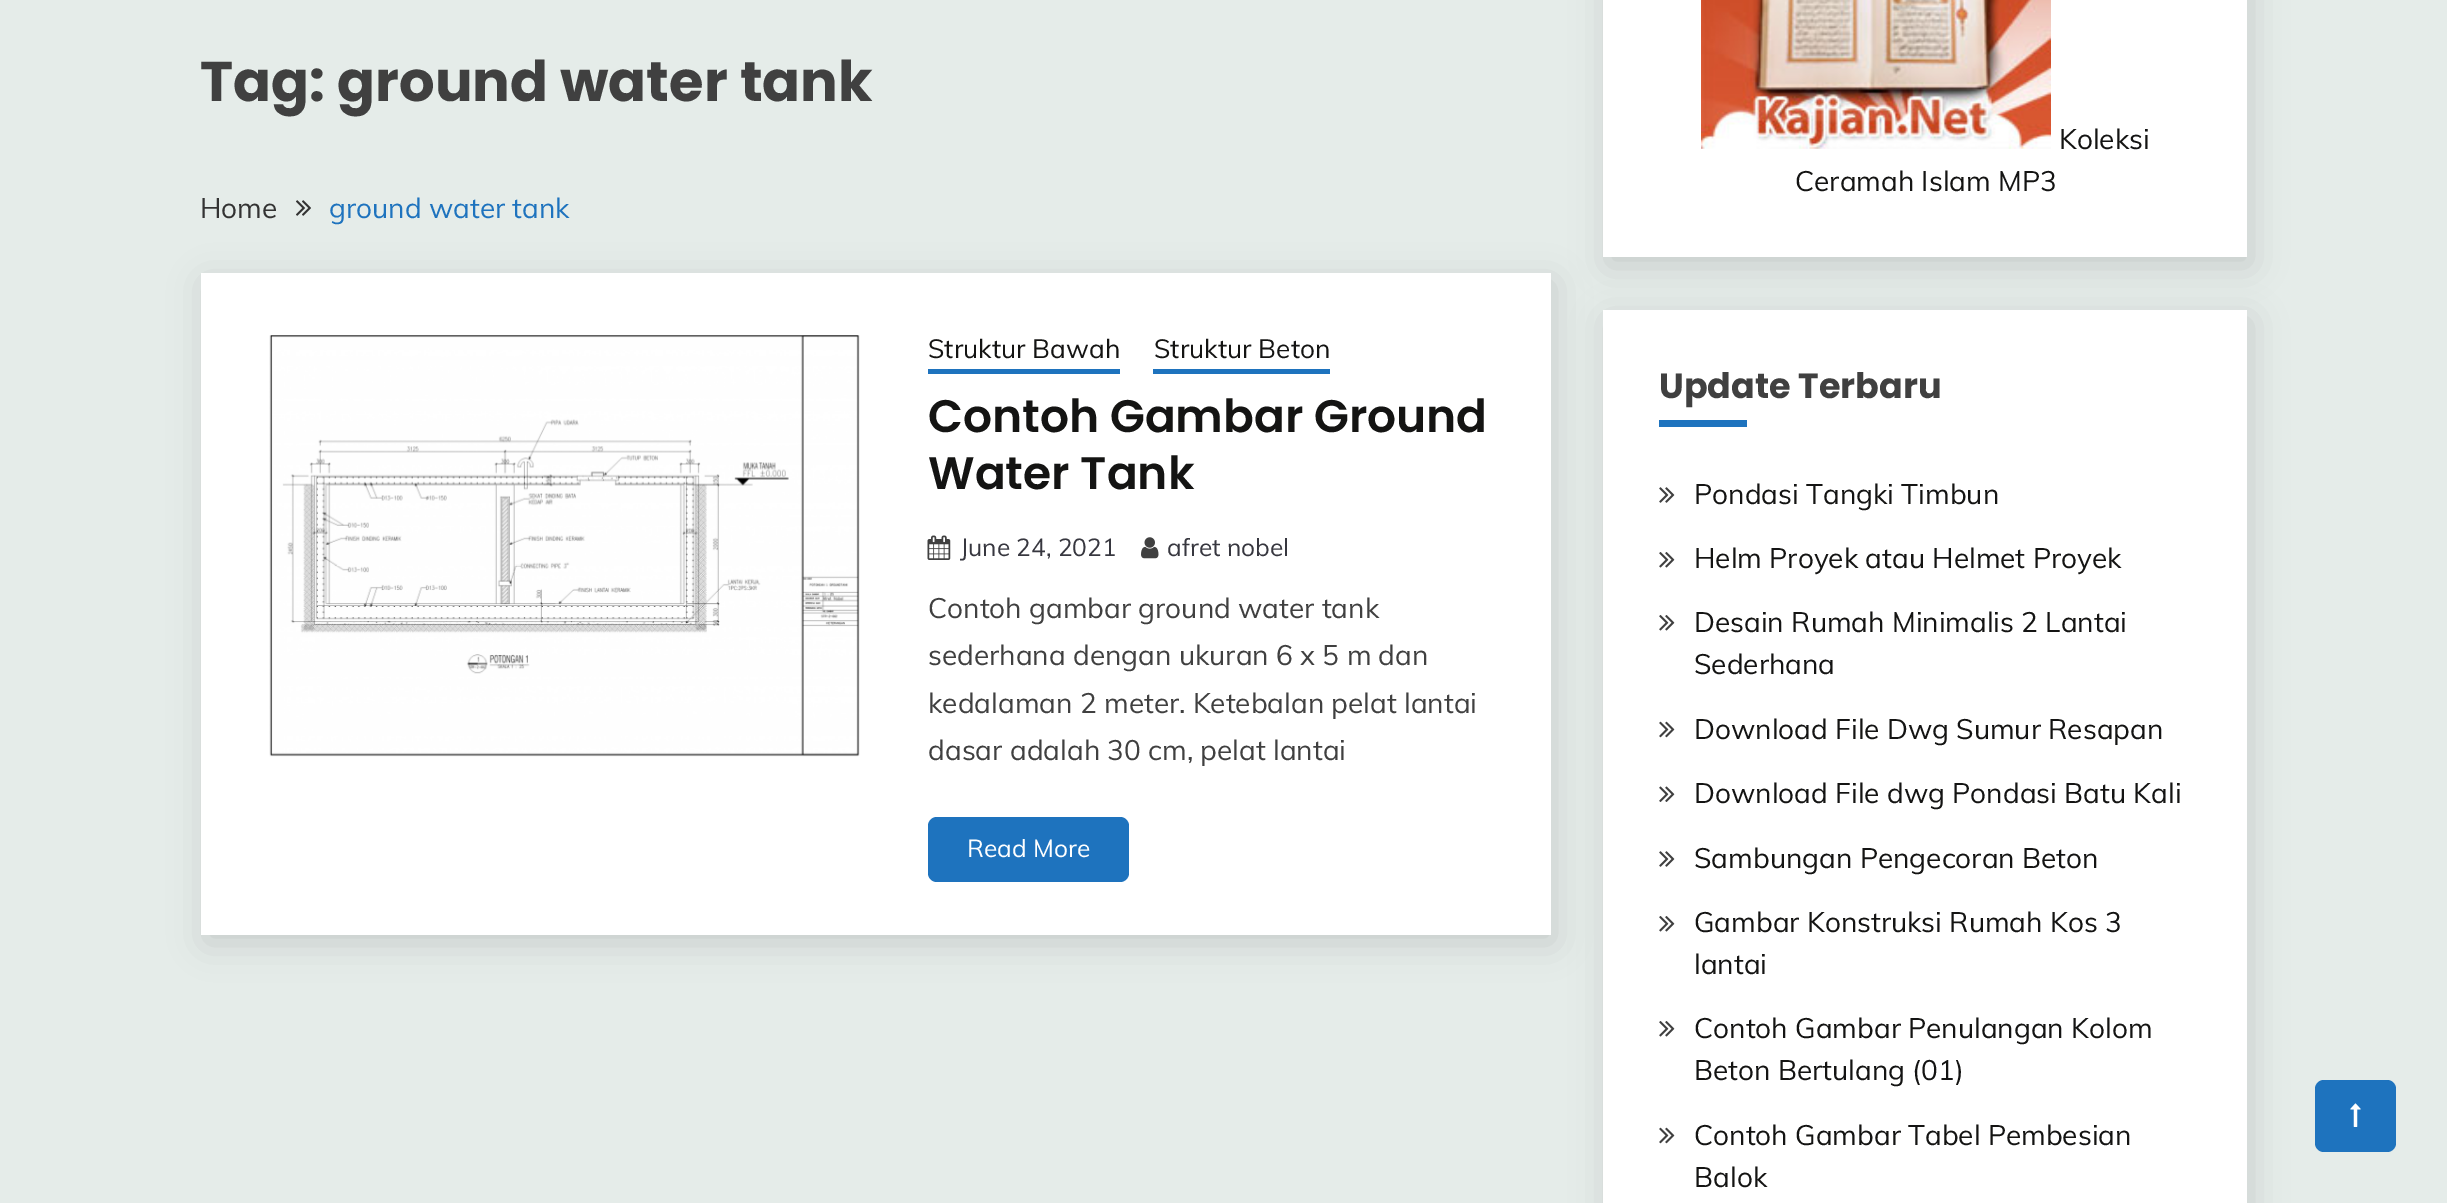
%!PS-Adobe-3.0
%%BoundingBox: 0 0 2447 1203
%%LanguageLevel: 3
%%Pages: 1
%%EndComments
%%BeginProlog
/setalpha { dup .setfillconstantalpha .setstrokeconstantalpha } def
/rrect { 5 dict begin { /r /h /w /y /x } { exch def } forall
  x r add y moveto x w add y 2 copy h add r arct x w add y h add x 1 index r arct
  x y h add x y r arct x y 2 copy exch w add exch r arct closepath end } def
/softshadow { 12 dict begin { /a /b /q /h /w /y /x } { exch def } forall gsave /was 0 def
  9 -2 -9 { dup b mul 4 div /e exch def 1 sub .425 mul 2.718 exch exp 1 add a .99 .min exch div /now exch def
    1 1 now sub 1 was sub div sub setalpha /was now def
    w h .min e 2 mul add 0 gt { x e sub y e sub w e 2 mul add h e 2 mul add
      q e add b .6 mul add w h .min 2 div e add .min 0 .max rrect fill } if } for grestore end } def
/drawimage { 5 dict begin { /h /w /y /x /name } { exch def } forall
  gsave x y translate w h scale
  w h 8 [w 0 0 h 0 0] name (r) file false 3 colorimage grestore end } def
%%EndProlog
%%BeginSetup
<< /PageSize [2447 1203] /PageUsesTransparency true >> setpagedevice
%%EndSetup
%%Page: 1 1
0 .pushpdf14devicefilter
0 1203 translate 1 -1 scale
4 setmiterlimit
0.898 0.925 0.914 setrgbcolor
0 0 2447 1203 rectfill
(images/1.raw) 296 200 15 16 drawimage
0 setgray
205 282 1349 661 0 17.5 0.14 softshadow
1 setgray
201 273 1350 662 rectfill
(images/2.raw) 269 335 591 422 drawimage
0.118 0.451 0.745 setrgbcolor
928 369 192 5 rectfill
1153 369 177 5 rectfill
(images/3.raw) 927 535 24 25 drawimage
(images/4.raw) 1141 537 18 22 drawimage
928 817 201 65 9 rrect fill
0 setgray
1607 -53 644 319 0 17.5 0.14 softshadow
1 setgray
1603 0 644 257 rectfill
(images/5.raw) 1701 0 350 149 drawimage
0 setgray
1607 319 644 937 0 17.5 0.14 softshadow
1 setgray
1603 310 644 893 rectfill
0.118 0.451 0.745 setrgbcolor
1659 420 88 7 rectfill
(images/6.raw) 1659 487 16 16 drawimage
(images/7.raw) 1659 552 16 16 drawimage
(images/7.raw) 1659 615 16 16 drawimage
(images/8.raw) 1659 721 16 17 drawimage
(images/9.raw) 1659 786 16 16 drawimage
(images/6.raw) 1659 851 16 16 drawimage
(images/7.raw) 1659 916 16 16 drawimage
(images/7.raw) 1659 1021 16 16 drawimage
(images/8.raw) 1659 1127 16 17 drawimage
2315 1080 81 72 9 rrect fill
(images/10.raw) 2350 1103 11 24 drawimage
/Poppins-Bold [56 0 0 -56 0 0] selectfont
0.251 setgray
200 101 moveto (Tag: ground water tank) show
/Muli-Regular [28 0 0 -28 0 0] selectfont
0.2 setgray
200 218 moveto (Home) show
0.118 0.451 0.745 setrgbcolor
329 218 moveto (ground water tank) show
/Muli-Regular [26.25 0 0 -26.25 0 0] selectfont
0.078 0.078 0.075 setrgbcolor
928 358 moveto (Struktur Bawah) show
1154 358 moveto (Struktur Beton) show
/Poppins-SemiBold [45.5 0 0 -45.5 0 0] selectfont
928 432 moveto (Contoh Gambar Ground) show
928 489 moveto (Water Tank) show
/Muli-Regular [24.5 0 0 -24.5 0 0] selectfont
0.216 0.216 0.247 setrgbcolor
960 556 moveto (June 24, 2021) show
1167 556 moveto (afret nobel) show
/Muli-Regular [28 0 0 -28 0 0] selectfont
0.251 setgray
928 618 moveto (Contoh gambar ground water tank) show
928 665 moveto (sederhana dengan ukuran 6 x 5 m dan) show
928 713 moveto (kedalaman 2 meter. Ketebalan pelat lantai) show
928 760 moveto (dasar adalah 30 cm, pelat lantai) show
/Muli-Regular [24.5 0 0 -24.5 0 0] selectfont
1 setgray
967 857 moveto (Read More) show
/Muli-Regular [28 0 0 -28 0 0] selectfont
0.078 0.078 0.075 setrgbcolor
2059 149 moveto (Koleksi) show
1795 191 moveto (Ceramah Islam MP3) show
/Poppins-Bold [35 0 0 -35 0 0] selectfont
0.251 setgray
1659 398 moveto (Update Terbaru) show
/Muli-Regular [28 0 0 -28 0 0] selectfont
0.078 0.078 0.075 setrgbcolor
1694 504 moveto (Pondasi Tangki Timbun) show
1694 568 moveto (Helm Proyek atau Helmet Proyek) show
1694 632 moveto (Desain Rumah Minimalis 2 Lantai) show
1694 674 moveto (Sederhana) show
1694 739 moveto (Download File Dwg Sumur Resapan) show
1694 803 moveto (Download File dwg Pondasi Batu Kali) show
1694 868 moveto (Sambungan Pengecoran Beton) show
1694 932 moveto (Gambar Konstruksi Rumah Kos 3) show
1694 974 moveto (lantai) show
1694 1038 moveto (Contoh Gambar Penulangan Kolom) show
1694 1080 moveto (Beton Bertulang \(01\)) show
1694 1145 moveto (Contoh Gambar Tabel Pembesian) show
1694 1187 moveto (Balok) show
.poppdf14devicefilter showpage
%%EOF
